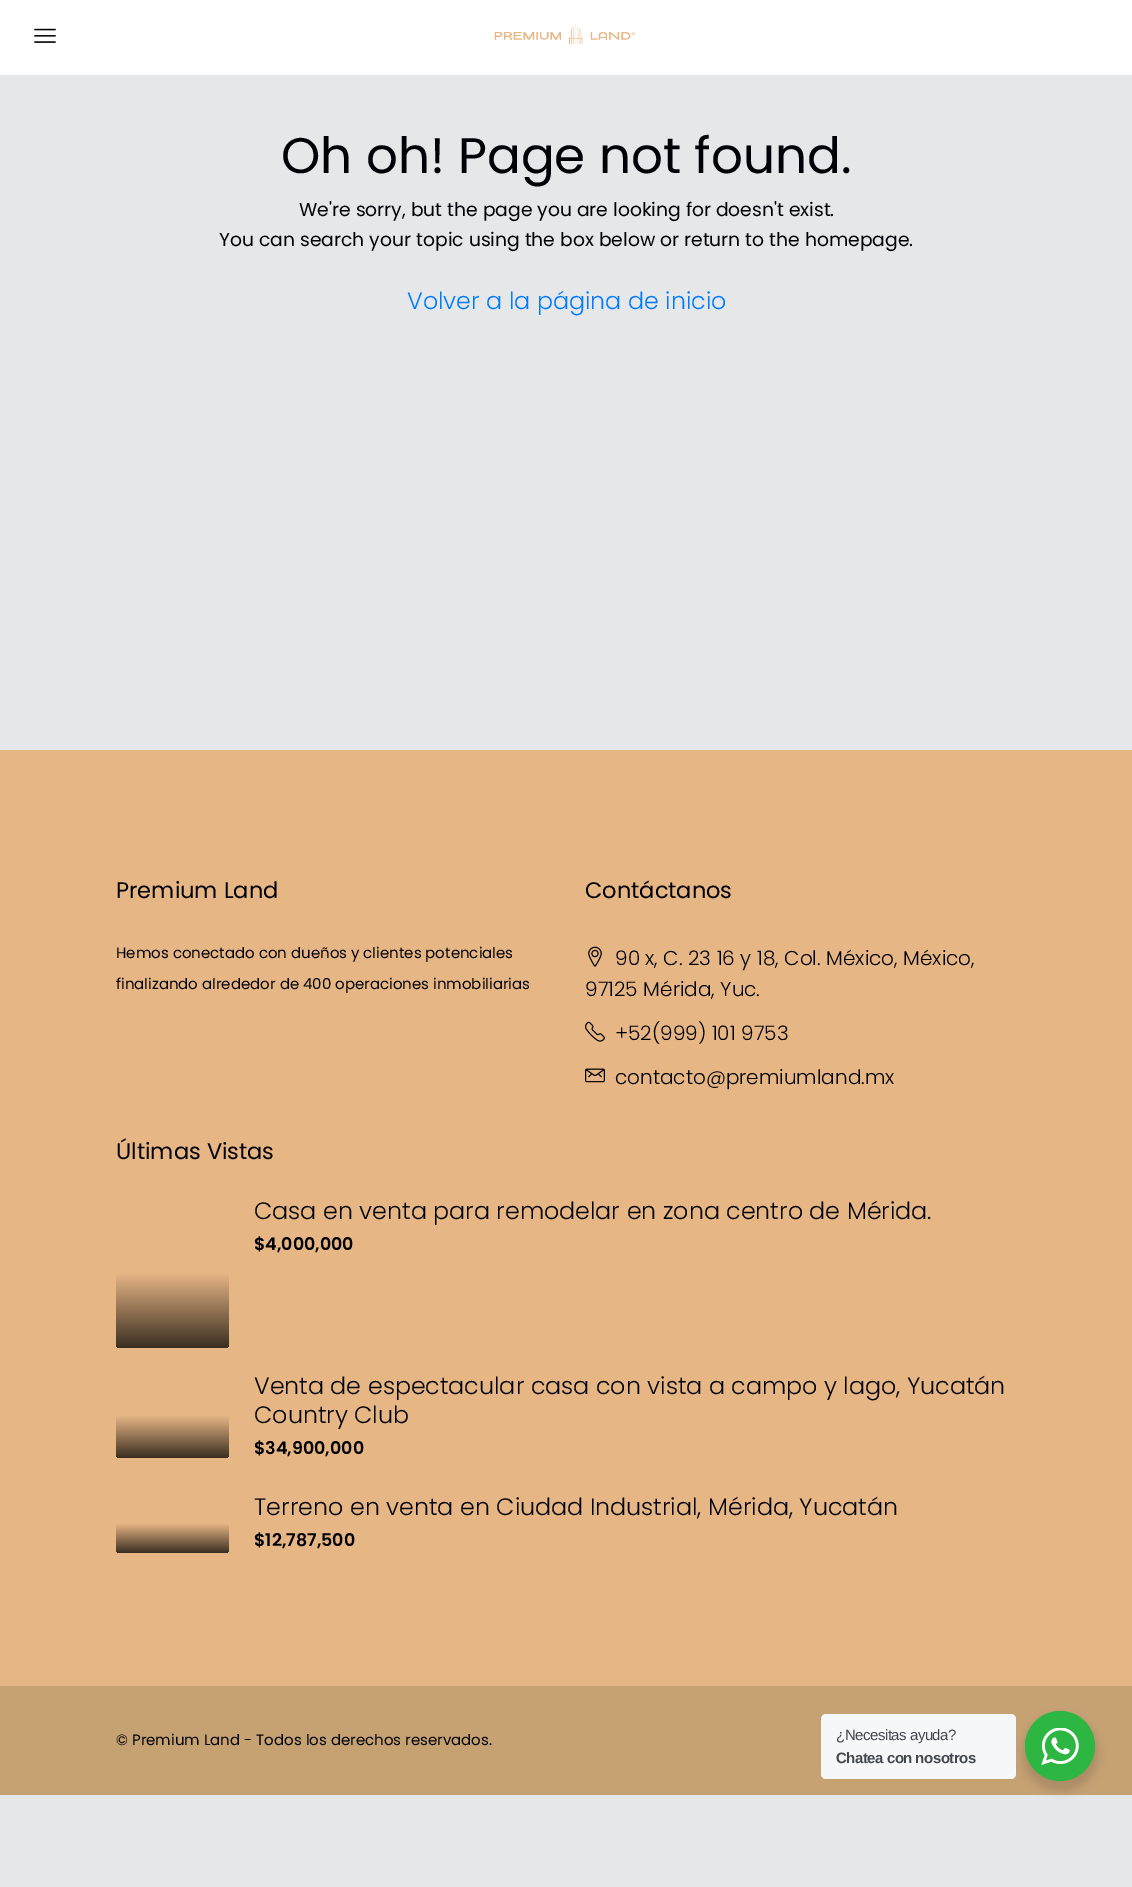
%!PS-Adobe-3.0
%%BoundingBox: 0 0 1132 1887
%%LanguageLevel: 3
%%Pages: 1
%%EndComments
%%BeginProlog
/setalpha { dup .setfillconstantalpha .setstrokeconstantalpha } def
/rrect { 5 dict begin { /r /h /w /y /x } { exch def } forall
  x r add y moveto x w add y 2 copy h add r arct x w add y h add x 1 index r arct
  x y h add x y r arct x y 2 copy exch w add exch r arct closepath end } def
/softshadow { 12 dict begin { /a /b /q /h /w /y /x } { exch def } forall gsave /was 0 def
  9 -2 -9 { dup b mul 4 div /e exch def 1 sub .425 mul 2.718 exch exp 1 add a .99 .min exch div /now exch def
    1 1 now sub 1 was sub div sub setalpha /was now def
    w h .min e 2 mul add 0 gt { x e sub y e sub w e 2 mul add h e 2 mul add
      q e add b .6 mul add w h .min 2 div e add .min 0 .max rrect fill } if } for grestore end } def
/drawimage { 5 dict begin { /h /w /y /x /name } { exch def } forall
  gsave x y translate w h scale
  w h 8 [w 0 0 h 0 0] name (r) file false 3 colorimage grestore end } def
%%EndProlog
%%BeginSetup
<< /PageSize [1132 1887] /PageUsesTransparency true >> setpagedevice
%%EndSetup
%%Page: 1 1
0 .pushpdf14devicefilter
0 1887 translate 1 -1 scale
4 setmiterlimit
0.902 0.906 0.91 setrgbcolor
0 0 1132 1887 rectfill
1 setgray
0 0 1132 75 rectfill
(images/1.raw) 34 28 22 15 drawimage
(images/2.raw) 494 24 142 20 drawimage
0.906 0.714 0.522 setrgbcolor
0 750 1132 936 rectfill
(images/3.raw) 588 946 14 21 drawimage
(images/4.raw) 585 1021 20 21 drawimage
(images/5.raw) 585 1068 20 15 drawimage
gsave 116 1198 113 150 4 rrect clip newpath
<< /ShadingType 2 /ColorSpace /DeviceRGB /Coords [173 1198 173 1348] /Extend [true true] /Function << /FunctionType 3 /Domain [0 1] /Functions [<< /FunctionType 2 /Domain [0 1] /C0 [0.906 0.714 0.522] /C1 [0.906 0.714 0.522] /N 1 >> << /FunctionType 2 /Domain [0 1] /C0 [0.906 0.714 0.522] /C1 [0.227 0.18 0.129] /N 1 >>] /Bounds [0.5] /Encode [0 1 0 1] >> >> shfill grestore
gsave 116 1373 113 85 4 rrect clip newpath
<< /ShadingType 2 /ColorSpace /DeviceRGB /Coords [173 1373 173 1458] /Extend [true true] /Function << /FunctionType 3 /Domain [0 1] /Functions [<< /FunctionType 2 /Domain [0 1] /C0 [0.906 0.714 0.522] /C1 [0.906 0.714 0.522] /N 1 >> << /FunctionType 2 /Domain [0 1] /C0 [0.906 0.714 0.522] /C1 [0.227 0.18 0.129] /N 1 >>] /Bounds [0.5] /Encode [0 1 0 1] >> >> shfill grestore
gsave 116 1494 113 59 4 rrect clip newpath
<< /ShadingType 2 /ColorSpace /DeviceRGB /Coords [173 1494 173 1553] /Extend [true true] /Function << /FunctionType 3 /Domain [0 1] /Functions [<< /FunctionType 2 /Domain [0 1] /C0 [0.906 0.714 0.522] /C1 [0.906 0.714 0.522] /N 1 >> << /FunctionType 2 /Domain [0 1] /C0 [0.906 0.714 0.522] /C1 [0.227 0.18 0.129] /N 1 >>] /Bounds [0.5] /Encode [0 1 0 1] >> >> shfill grestore
0.776 0.635 0.451 setrgbcolor
0 1686 1132 109 rectfill
0 setgray
1023 1716 75 75 37.5 5 0.14 softshadow
0.961 0.969 0.976 setrgbcolor
821 1714 195 65 5 rrect fill
0.176 0.718 0.259 setrgbcolor
newpath 1060 1746 35 0 360 arc closepath fill
(images/6.raw) 1041 1728 38 37 drawimage
/Poppins-Regular [50 0 0 -50 0 0] selectfont
0.004 0.004 0.031 setrgbcolor
281 173 moveto (Oh oh! Page not found.) show
/Poppins-Regular [18.75 0 0 -18.75 0 0] selectfont
299 216 moveto (We're sorry, but the page you are looking for doesn't exist.) show
219 246 moveto (You can search your topic using the box below or return to the homepage.) show
/Poppins-Light [23.75 0 0 -23.75 0 0] selectfont
0 0.482 1 setrgbcolor
407 309 moveto (Volver a la página de inicio) show
/Poppins-Regular [22.5 0 0 -22.5 0 0] selectfont
0.004 0.004 0.031 setrgbcolor
116 898 moveto (Premium Land) show
/Poppins-Regular [15 0 0 -15 0 0] selectfont
116 958 moveto (Hemos conectado con dueños y clientes potenciales) show
116 989 moveto (finalizando alrededor de 400 operaciones inmobiliarias) show
/Poppins-Regular [22.5 0 0 -22.5 0 0] selectfont
585 898 moveto (Contáctanos) show
/Poppins-Light [20 0 0 -20 0 0] selectfont
615 965 moveto (90 x, C. 23 16 y 18, Col. México, México,) show
585 996 moveto (97125 Mérida, Yuc.) show
615 1040 moveto (+52\(999\) 101 9753) show
615 1084 moveto (contacto@premiumland.mx) show
/Poppins-Regular [22.5 0 0 -22.5 0 0] selectfont
116 1159 moveto (Últimas Vistas) show
/Poppins-Light [23.75 0 0 -23.75 0 0] selectfont
254 1219 moveto (Casa en venta para remodelar en zona centro de Mérida.) show
/Poppins-SemiBold [17.5 0 0 -17.5 0 0] selectfont
254 1250 moveto ($4,000,000) show
/Poppins-Light [23.75 0 0 -23.75 0 0] selectfont
254 1394 moveto (Venta de espectacular casa con vista a campo y lago, Yucatán) show
254 1423 moveto (Country Club) show
/Poppins-SemiBold [17.5 0 0 -17.5 0 0] selectfont
254 1454 moveto ($34,900,000) show
/Poppins-Light [23.75 0 0 -23.75 0 0] selectfont
254 1515 moveto (Terreno en venta en Ciudad Industrial, Mérida, Yucatán) show
/Poppins-SemiBold [17.5 0 0 -17.5 0 0] selectfont
254 1546 moveto ($12,787,500) show
/Poppins-Regular [15 0 0 -15 0 0] selectfont
116 1745 moveto (© Premium Land - Todos los derechos reservados.) show
/LiberationSans-Regular [15 0 0 -15 0 0] selectfont
0.263 0.278 0.306 setrgbcolor
836 1740 moveto -0.5 0 (¿Necesitas ayuda?) ashow
/LiberationSans-Bold [15 0 0 -15 0 0] selectfont
836 1763 moveto -0.5 0 (Chatea con nosotros) ashow
.poppdf14devicefilter showpage
%%EOF
